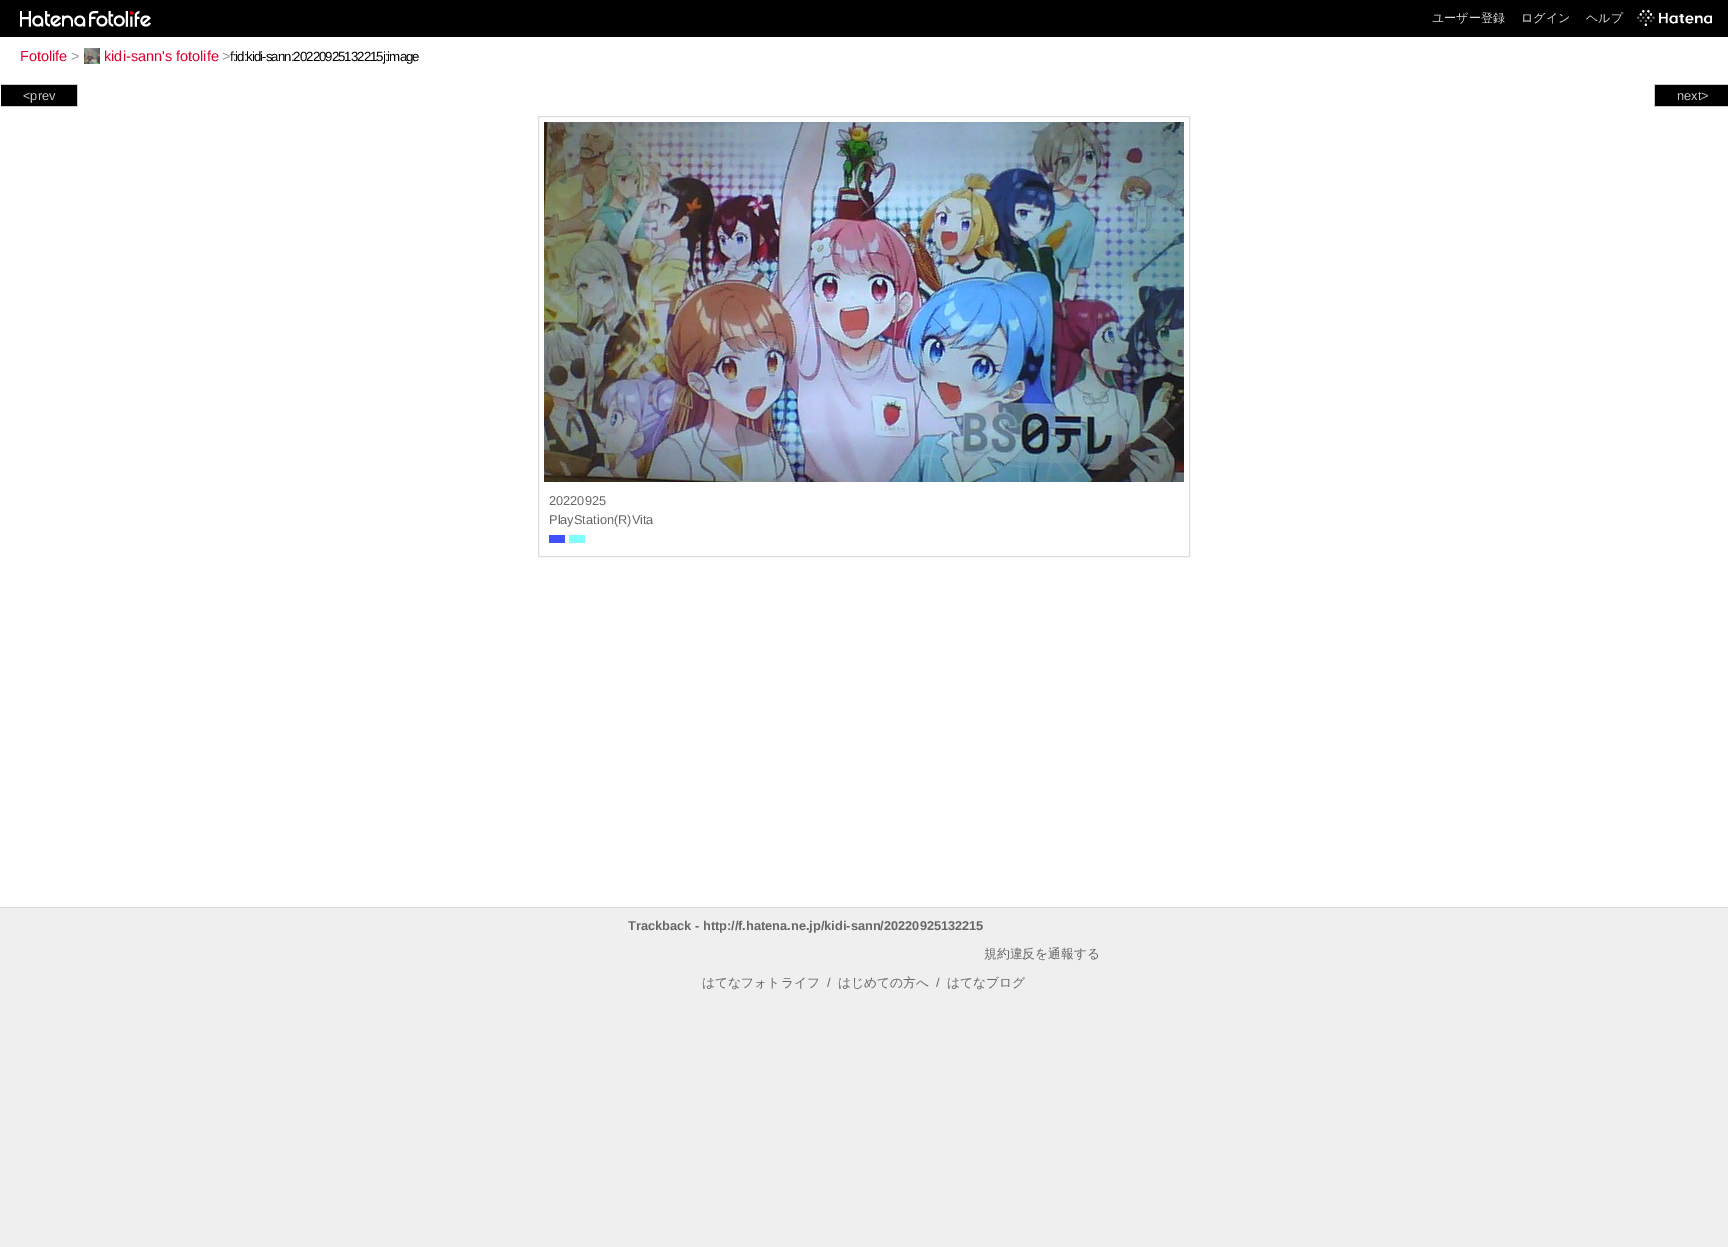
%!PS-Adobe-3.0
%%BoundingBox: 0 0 1728 1247
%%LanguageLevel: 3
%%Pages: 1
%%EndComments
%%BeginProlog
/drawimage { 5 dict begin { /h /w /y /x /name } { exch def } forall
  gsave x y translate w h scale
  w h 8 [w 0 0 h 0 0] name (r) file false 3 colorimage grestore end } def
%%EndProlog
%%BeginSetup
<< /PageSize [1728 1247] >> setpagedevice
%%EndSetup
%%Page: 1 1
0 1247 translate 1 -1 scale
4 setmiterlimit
0.937 setgray
0 0 1728 1247 rectfill
0 setgray
0 0 1728 37 rectfill
(images/1.raw) 20 11 66 16 drawimage
(images/2.raw) 89 11 62 16 drawimage
(images/3.raw) 1637 10 75 16 drawimage
1 setgray
0 37 1728 870 rectfill
(images/4.raw) 84 48 16 16 drawimage
0.871 setgray
0 907 1728 1 rectfill
0 setgray
1 85 76 21 rectfill
0.8 setgray
1 84 77 1 rectfill
77 84 1 23 rectfill
1 106 77 1 rectfill
0 setgray
1655 85 73 21 rectfill
0.8 setgray
1654 84 74 1 rectfill
1654 106 74 1 rectfill
1654 84 1 23 rectfill
0.871 setgray
538.5 116.5 651 440 rectstroke
(images/5.raw) 544 122 640 360 drawimage
0.251 0.314 1 setrgbcolor
549 535 16 8 rectfill
0.502 1 1 setrgbcolor
569 535 16 8 rectfill
/WenQuanYiZenHei-Medium [12 0 0 -12 0 0] selectfont
0.867 setgray
1432 22 moveto (ユーザー登録) show
1521 22 moveto (ログイン) show
1586 22 moveto (ヘルプ) show
/LiberationSans-Regular [14.5 0 0 -14.5 0 0] selectfont
0.871 0 0.184 setrgbcolor
20 61 moveto (Fotolife) show
0.6 setgray
71 61 moveto (>) show
0.871 0 0.184 setrgbcolor
104 61 moveto (kidi-sann's fotolife) show
0.6 setgray
222 61 moveto (>) show
/LiberationSans-Regular [13.3 0 0 -13.3 0 0] selectfont
0 setgray
230 61 moveto -1 0 (f:id:kidi-sann:20220925132215j:image) ashow
/LiberationSans-Regular [12.8 0 0 -12.8 0 0] selectfont
0.8 setgray
23 100 moveto (<prev) show
1677 100 moveto (next>) show
0.4 setgray
549 505 moveto (20220925) show
549 524 moveto (PlayStation\(R\)Vita) show
/LiberationSans-Bold [12.8 0 0 -12.8 0 0] selectfont
628 930 moveto (Trackback - http://f.hatena.ne.jp/kidi-sann/20220925132215) show
/WenQuanYiZenHei-Medium [12.8 0 0 -12.8 0 0] selectfont
984 958 moveto (規約違反を通報する) show
702 987 moveto (はてなフォトライフ) show
/LiberationSans-Regular [12.8 0 0 -12.8 0 0] selectfont
827 987 moveto (/) show
/WenQuanYiZenHei-Medium [12.8 0 0 -12.8 0 0] selectfont
838 987 moveto (はじめての方へ) show
/LiberationSans-Regular [12.8 0 0 -12.8 0 0] selectfont
936 987 moveto (/) show
/WenQuanYiZenHei-Medium [12.8 0 0 -12.8 0 0] selectfont
947 987 moveto (はてなブログ) show
showpage
%%EOF
